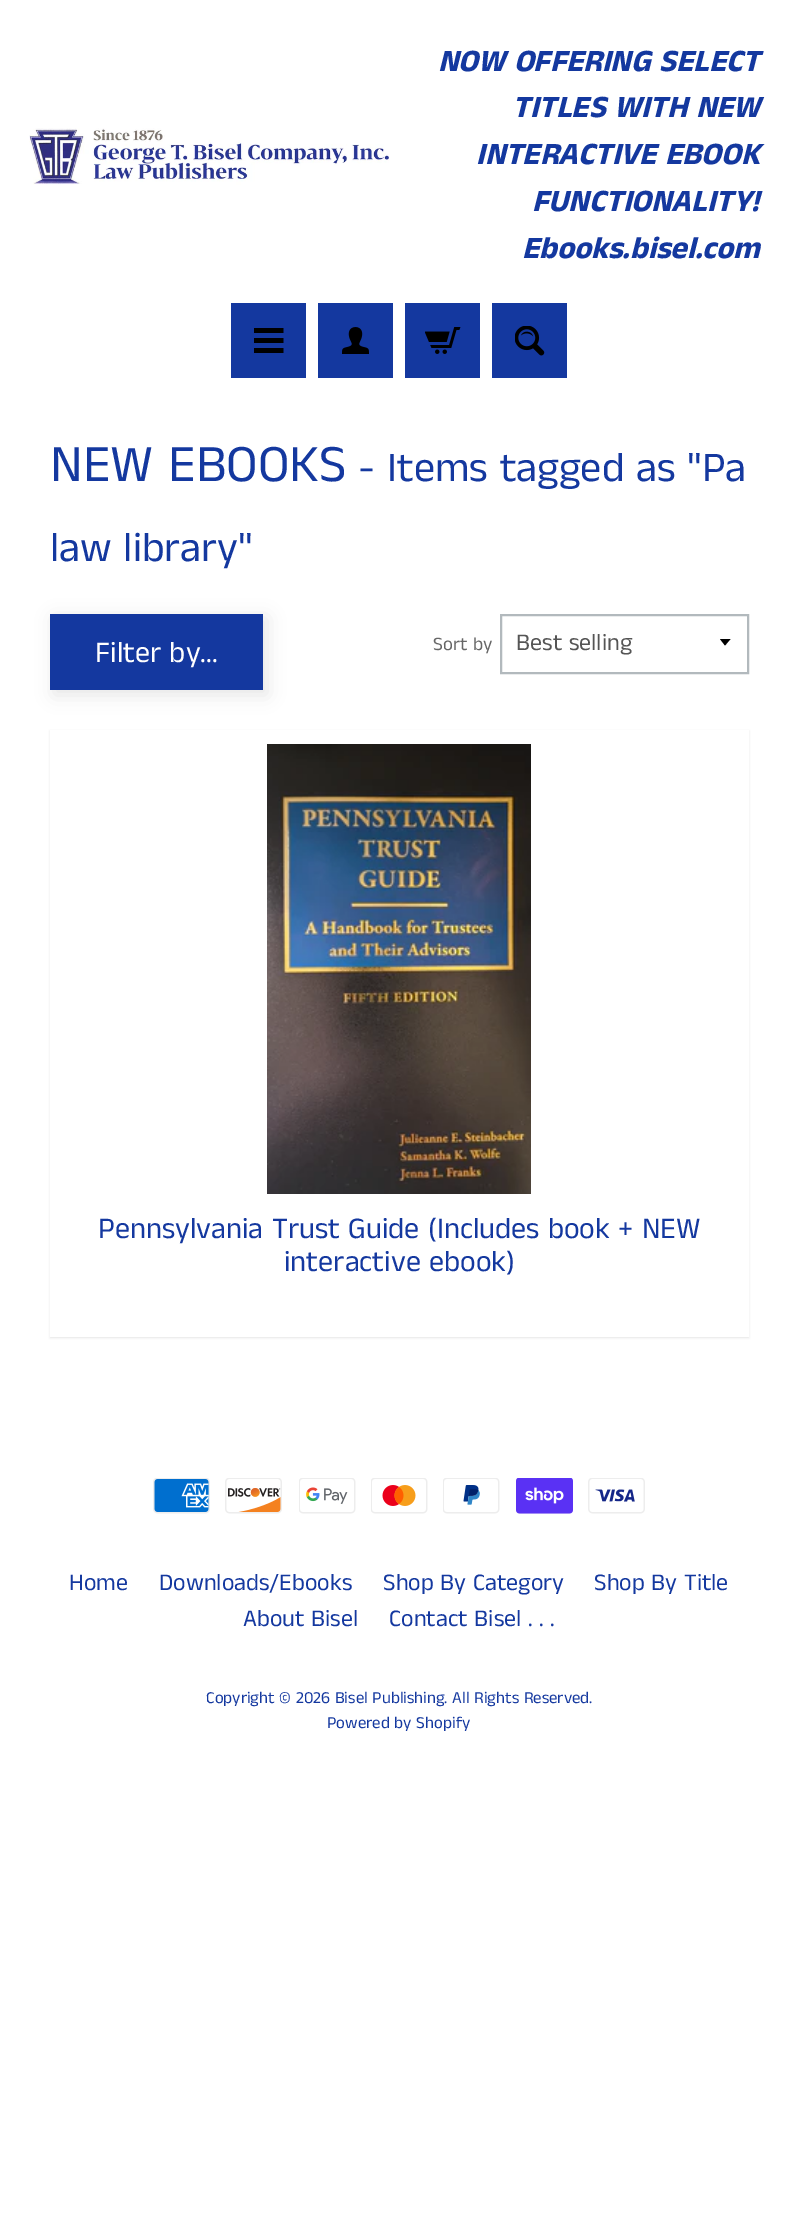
%!PS-Adobe-3.0
%%BoundingBox: 0 0 797 2229
%%LanguageLevel: 3
%%Pages: 1
%%EndComments
%%BeginProlog
/setalpha { dup .setfillconstantalpha .setstrokeconstantalpha } def
/rrect { 5 dict begin { /r /h /w /y /x } { exch def } forall
  x r add y moveto x w add y 2 copy h add r arct x w add y h add x 1 index r arct
  x y h add x y r arct x y 2 copy exch w add exch r arct closepath end } def
/softshadow { 12 dict begin { /a /b /q /h /w /y /x } { exch def } forall gsave /was 0 def
  9 -2 -9 { dup b mul 4 div /e exch def 1 sub .425 mul 2.718 exch exp 1 add a .99 .min exch div /now exch def
    1 1 now sub 1 was sub div sub setalpha /was now def
    w h .min e 2 mul add 0 gt { x e sub y e sub w e 2 mul add h e 2 mul add
      q e add b .6 mul add w h .min 2 div e add .min 0 .max rrect fill } if } for grestore end } def
/drawimage { 5 dict begin { /h /w /y /x /name } { exch def } forall
  gsave x y translate w h scale
  w h 8 [w 0 0 h 0 0] name (r) file false 3 colorimage grestore end } def
%%EndProlog
%%BeginSetup
<< /PageSize [797 2229] /PageUsesTransparency true >> setpagedevice
%%EndSetup
%%Page: 1 1
0 .pushpdf14devicefilter
0 2229 translate 1 -1 scale
4 setmiterlimit
1 setgray
0 0 797 2229 rectfill
(images/1.raw) 29 128 360 57 drawimage
0.078 0.22 0.624 setrgbcolor
231 303 75 75 rectfill
(images/2.raw) 254 328 30 25 drawimage
318 303 75 75 rectfill
(images/3.raw) 342 327 27 27 drawimage
405 303 75 75 rectfill
(images/4.raw) 425 327 36 27 drawimage
492 303 75 75 rectfill
(images/5.raw) 515 326 30 30 drawimage
0 setgray
54 618 213 77 0 9 0.1 softshadow
0.078 0.22 0.624 setrgbcolor
50 614 213 76 rectfill
0 setgray
newpath 720 639 moveto 725 645.5 lineto 730.5 639 lineto closepath fill
0.698 0.725 0.741 setrgbcolor
2 setlinewidth
501 615 247 58 rectstroke
0 setgray
50 731 699 607 0 1 0.1 softshadow
1 setgray
50 730 699 607 rectfill
(images/6.raw) 267 744 264 450 drawimage
(images/7.raw) 153 1478 57 36 drawimage
(images/8.raw) 225 1478 57 36 drawimage
(images/9.raw) 299 1478 57 36 drawimage
(images/10.raw) 371 1478 57 36 drawimage
(images/11.raw) 443 1478 57 36 drawimage
(images/12.raw) 516 1478 57 36 drawimage
(images/13.raw) 588 1478 57 36 drawimage
/AnekTamil-BoldItalic [31.25 0 0 -31.25 0 0] selectfont
0.078 0.22 0.624 setrgbcolor
438 71 moveto (NOW OFFERING SELECT) show
512 117 moveto (TITLES WITH NEW) show
476 164 moveto (INTERACTIVE EBOOK) show
532 211 moveto (FUNCTIONALITY!) show
522 258 moveto (Ebooks.bisel.com) show
/AnekTamil-Regular [52.75 0 0 -52.75 0 0] selectfont
50 481 moveto (NEW EBOOKS) show
/AnekTamil-Regular [42.25 0 0 -42.25 0 0] selectfont
358 481 moveto (- Items tagged as "Pa) show
50 561 moveto (law library") show
/AnekTamil-Regular [30 0 0 -30 0 0] selectfont
1 setgray
95 662 moveto (Filter by...) show
/AnekTamil-Regular [19 0 0 -19 0 0] selectfont
0.4 setgray
433 650 moveto (Sort by) show
/AnekTamil-Regular [24 0 0 -24 0 0] selectfont
0.333 setgray
516 650 moveto (Best selling) show
/AnekTamil-Regular [30 0 0 -30 0 0] selectfont
0.078 0.22 0.624 setrgbcolor
98 1238 moveto (Pennsylvania Trust Guide \(Includes book + NEW) show
284 1271 moveto (interactive ebook\)) show
/AnekTamil-Regular [24 0 0 -24 0 0] selectfont
69 1590 moveto (Home) show
159 1590 moveto (Downloads/Ebooks) show
383 1590 moveto (Shop By Category) show
594 1590 moveto (Shop By Title) show
243 1626 moveto (About Bisel) show
389 1626 moveto (Contact Bisel . . .) show
/AnekTamil-Regular [16.8 0 0 -16.8 0 0] selectfont
206 1703 moveto (Copyright © 2026 Bisel Publishing. All Rights Reserved.) show
327 1728 moveto (Powered by Shopify) show
.poppdf14devicefilter showpage
%%EOF
